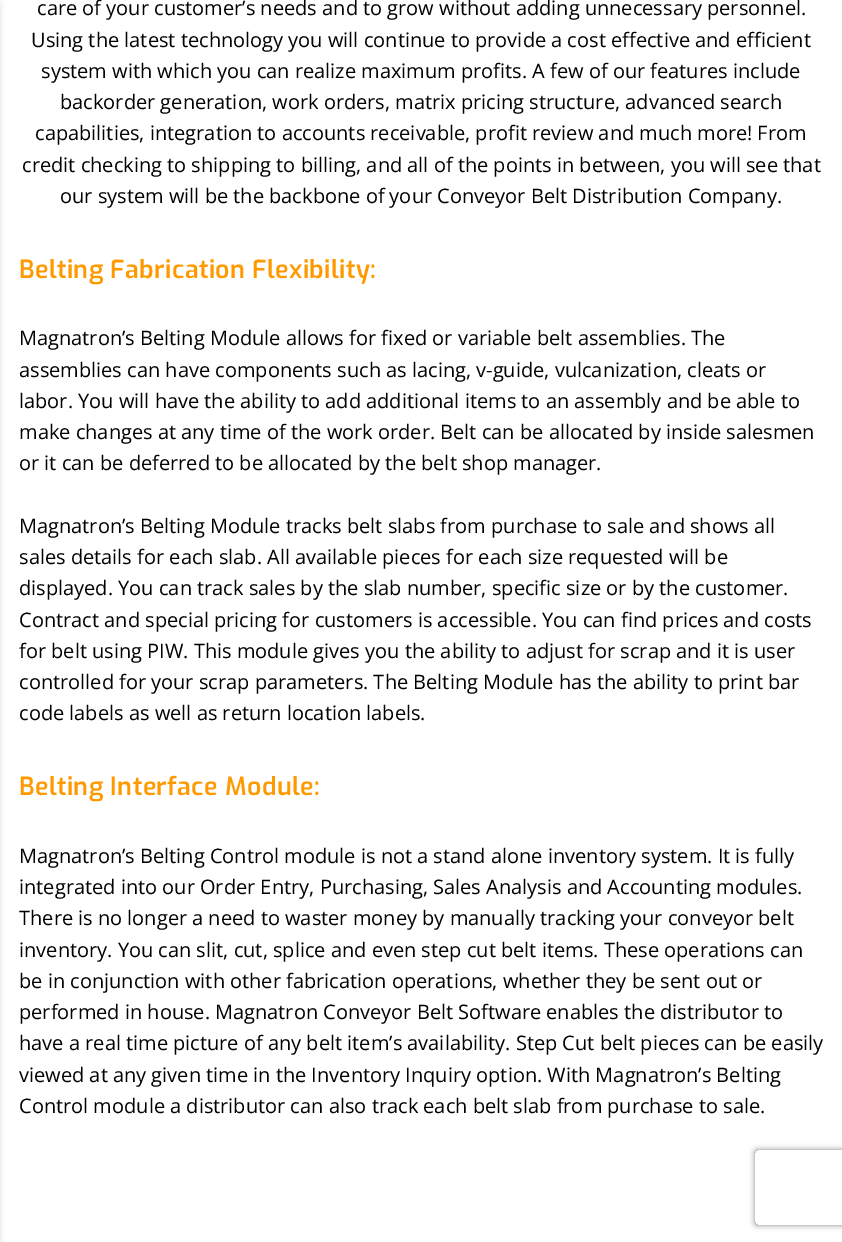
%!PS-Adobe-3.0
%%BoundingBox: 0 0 842 1242
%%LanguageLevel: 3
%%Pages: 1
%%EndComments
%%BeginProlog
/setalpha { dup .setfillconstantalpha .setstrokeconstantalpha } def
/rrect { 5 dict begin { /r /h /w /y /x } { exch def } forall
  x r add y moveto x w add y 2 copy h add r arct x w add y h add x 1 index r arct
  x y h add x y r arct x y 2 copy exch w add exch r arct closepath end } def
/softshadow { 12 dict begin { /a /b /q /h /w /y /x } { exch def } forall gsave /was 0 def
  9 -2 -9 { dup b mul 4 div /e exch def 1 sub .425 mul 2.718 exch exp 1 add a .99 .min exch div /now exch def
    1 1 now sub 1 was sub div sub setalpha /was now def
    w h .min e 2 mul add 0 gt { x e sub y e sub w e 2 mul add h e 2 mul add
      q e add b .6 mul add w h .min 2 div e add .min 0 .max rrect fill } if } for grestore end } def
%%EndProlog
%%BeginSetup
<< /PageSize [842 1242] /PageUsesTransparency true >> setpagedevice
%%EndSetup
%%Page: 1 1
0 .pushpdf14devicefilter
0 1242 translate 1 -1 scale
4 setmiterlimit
1 setgray
0 0 842 1242 rectfill
0 setgray
-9 4 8 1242 0 3 0.2 softshadow
gsave
newpath 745 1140 moveto 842 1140 lineto 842 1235 lineto 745 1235 lineto closepath 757.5 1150 moveto 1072.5 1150 lineto 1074 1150 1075 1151 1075 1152.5 curveto 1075 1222.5 lineto 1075 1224 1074 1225 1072.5 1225 curveto 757.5 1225 lineto 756 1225 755 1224 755 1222.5 curveto 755 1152.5 lineto 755 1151 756 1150 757.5 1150 curveto closepath eoclip newpath
0.502 setgray
755 1150 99 75 2.5 3 1 softshadow
grestore
/OpenSans-Regular [20 0 0 -20 0 0] selectfont
37 15 moveto (care of your customer’s needs and to grow without adding unnecessary personnel.) show
31 47 moveto (Using the latest technology you will continue to provide a cost effective and efficient) show
41 78 moveto (system with which you can realize maximum profits. A few of our features include) show
60 109 moveto (backorder generation, work orders, matrix pricing structure, advanced search) show
35 140 moveto (capabilities, integration to accounts receivable, profit review and much more! From) show
22 172 moveto (credit checking to shipping to billing, and all of the points in between, you will see that) show
60 203 moveto (our system will be the backbone of your Conveyor Belt Distribution Company.) show
/Exo-SemiBold [25 0 0 -25 0 0] selectfont
1 0.6 0 setrgbcolor
19 278 moveto 0.4 0 (Belting Fabrication Flexibility:) ashow
/OpenSans-Regular [20 0 0 -20 0 0] selectfont
0 setgray
19 345 moveto (Magnatron’s Belting Module allows for fixed or variable belt assemblies. The) show
19 377 moveto (assemblies can have components such as lacing, v-guide, vulcanization, cleats or) show
19 408 moveto (labor. You will have the ability to add additional items to an assembly and be able to) show
19 439 moveto (make changes at any time of the work order. Belt can be allocated by inside salesmen) show
19 470 moveto (or it can be deferred to be allocated by the belt shop manager.) show
19 533 moveto (Magnatron’s Belting Module tracks belt slabs from purchase to sale and shows all) show
19 564 moveto (sales details for each slab. All available pieces for each size requested will be) show
19 595 moveto (displayed. You can track sales by the slab number, specific size or by the customer.) show
19 627 moveto (Contract and special pricing for customers is accessible. You can find prices and costs) show
19 658 moveto (for belt using PIW. This module gives you the ability to adjust for scrap and it is user) show
19 689 moveto (controlled for your scrap parameters. The Belting Module has the ability to print bar) show
19 720 moveto (code labels as well as return location labels.) show
/Exo-SemiBold [25 0 0 -25 0 0] selectfont
1 0.6 0 setrgbcolor
19 795 moveto 0.4 0 (Belting Interface Module:) ashow
/OpenSans-Regular [20 0 0 -20 0 0] selectfont
0 setgray
19 863 moveto (Magnatron’s Belting Control module is not a stand alone inventory system. It is fully) show
19 894 moveto (integrated into our Order Entry, Purchasing, Sales Analysis and Accounting modules.) show
19 925 moveto (There is no longer a need to waster money by manually tracking your conveyor belt) show
19 957 moveto (inventory. You can slit, cut, splice and even step cut belt items. These operations can) show
19 988 moveto (be in conjunction with other fabrication operations, whether they be sent out or) show
19 1019 moveto (performed in house. Magnatron Conveyor Belt Software enables the distributor to) show
19 1050 moveto (have a real time picture of any belt item’s availability. Step Cut belt pieces can be easily) show
19 1082 moveto (viewed at any given time in the Inventory Inquiry option. With Magnatron’s Belting) show
19 1113 moveto (Control module a distributor can also track each belt slab from purchase to sale.) show
.poppdf14devicefilter showpage
%%EOF
